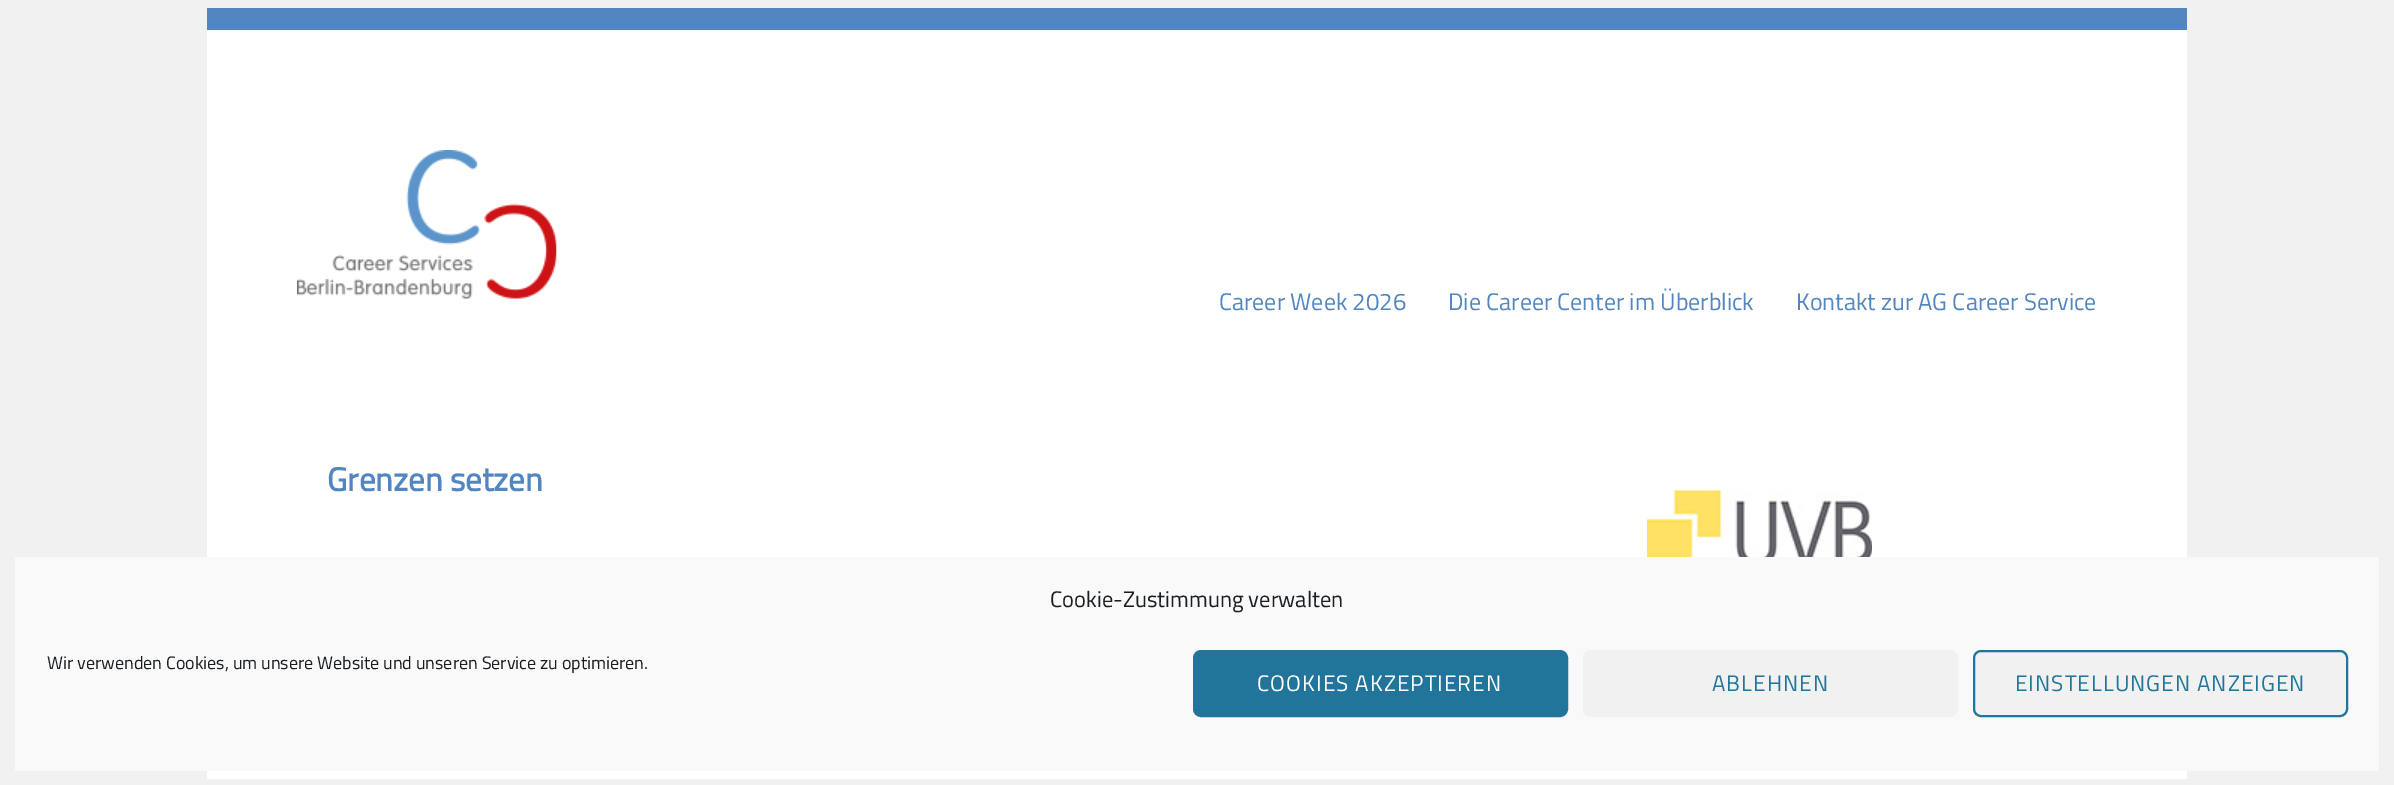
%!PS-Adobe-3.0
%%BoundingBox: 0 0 2394 785
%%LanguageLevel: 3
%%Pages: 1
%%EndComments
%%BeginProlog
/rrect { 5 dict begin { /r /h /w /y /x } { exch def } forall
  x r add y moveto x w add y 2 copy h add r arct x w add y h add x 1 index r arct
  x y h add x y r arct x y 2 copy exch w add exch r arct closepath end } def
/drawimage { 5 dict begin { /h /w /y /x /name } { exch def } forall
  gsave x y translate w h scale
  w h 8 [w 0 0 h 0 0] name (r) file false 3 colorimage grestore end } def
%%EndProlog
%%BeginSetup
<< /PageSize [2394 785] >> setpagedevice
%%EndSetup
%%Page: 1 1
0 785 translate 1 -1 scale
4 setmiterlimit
0.945 setgray
0 0 2394 785 rectfill
0.318 0.525 0.757 setrgbcolor
207 8 1980 22 rectfill
1 setgray
207 30 1980 749 rectfill
(images/1.raw) 297 150 260 149 drawimage
(images/2.raw) 1647 490 225 67 drawimage
0.976 setgray
15 557 2364 214 rectfill
0.129 0.459 0.608 setrgbcolor
1194 651 373 65 7 rrect gsave fill grestore
2 setlinewidth
stroke
0.945 setgray
1583 650 375 67 8 rrect fill
1974 651 373 65 7 rrect gsave fill grestore
0.129 0.459 0.608 setrgbcolor
stroke
/TitilliumWeb-Regular [24 0 0 -24 0 0] selectfont
0.318 0.525 0.757 setrgbcolor
1219 310 moveto (Career Week 2026) show
1448 310 moveto (Die Career Center im Überblick) show
1796 310 moveto (Kontakt zur AG Career Service) show
/TitilliumWeb-Bold [33 0 0 -33 0 0] selectfont
327 491 moveto (Grenzen setzen) show
/TitilliumWeb-Regular [22.5 0 0 -22.5 0 0] selectfont
0.098 0.118 0.137 setrgbcolor
1050 607 moveto (Cookie-Zustimmung verwalten) show
/TitilliumWeb-Regular [18 0 0 -18 0 0] selectfont
47 669 moveto (Wir verwenden Cookies, um unsere Website und unseren Service zu optimieren.) show
/TitilliumWeb-Regular [22.5 0 0 -22.5 0 0] selectfont
1 setgray
1257 691 moveto 1.05 0 (COOKIES AKZEPTIEREN) ashow
0.129 0.459 0.608 setrgbcolor
1712 691 moveto 1.05 0 (ABLEHNEN) ashow
2015 691 moveto 1.05 0 (EINSTELLUNGEN ANZEIGEN) ashow
showpage
%%EOF
